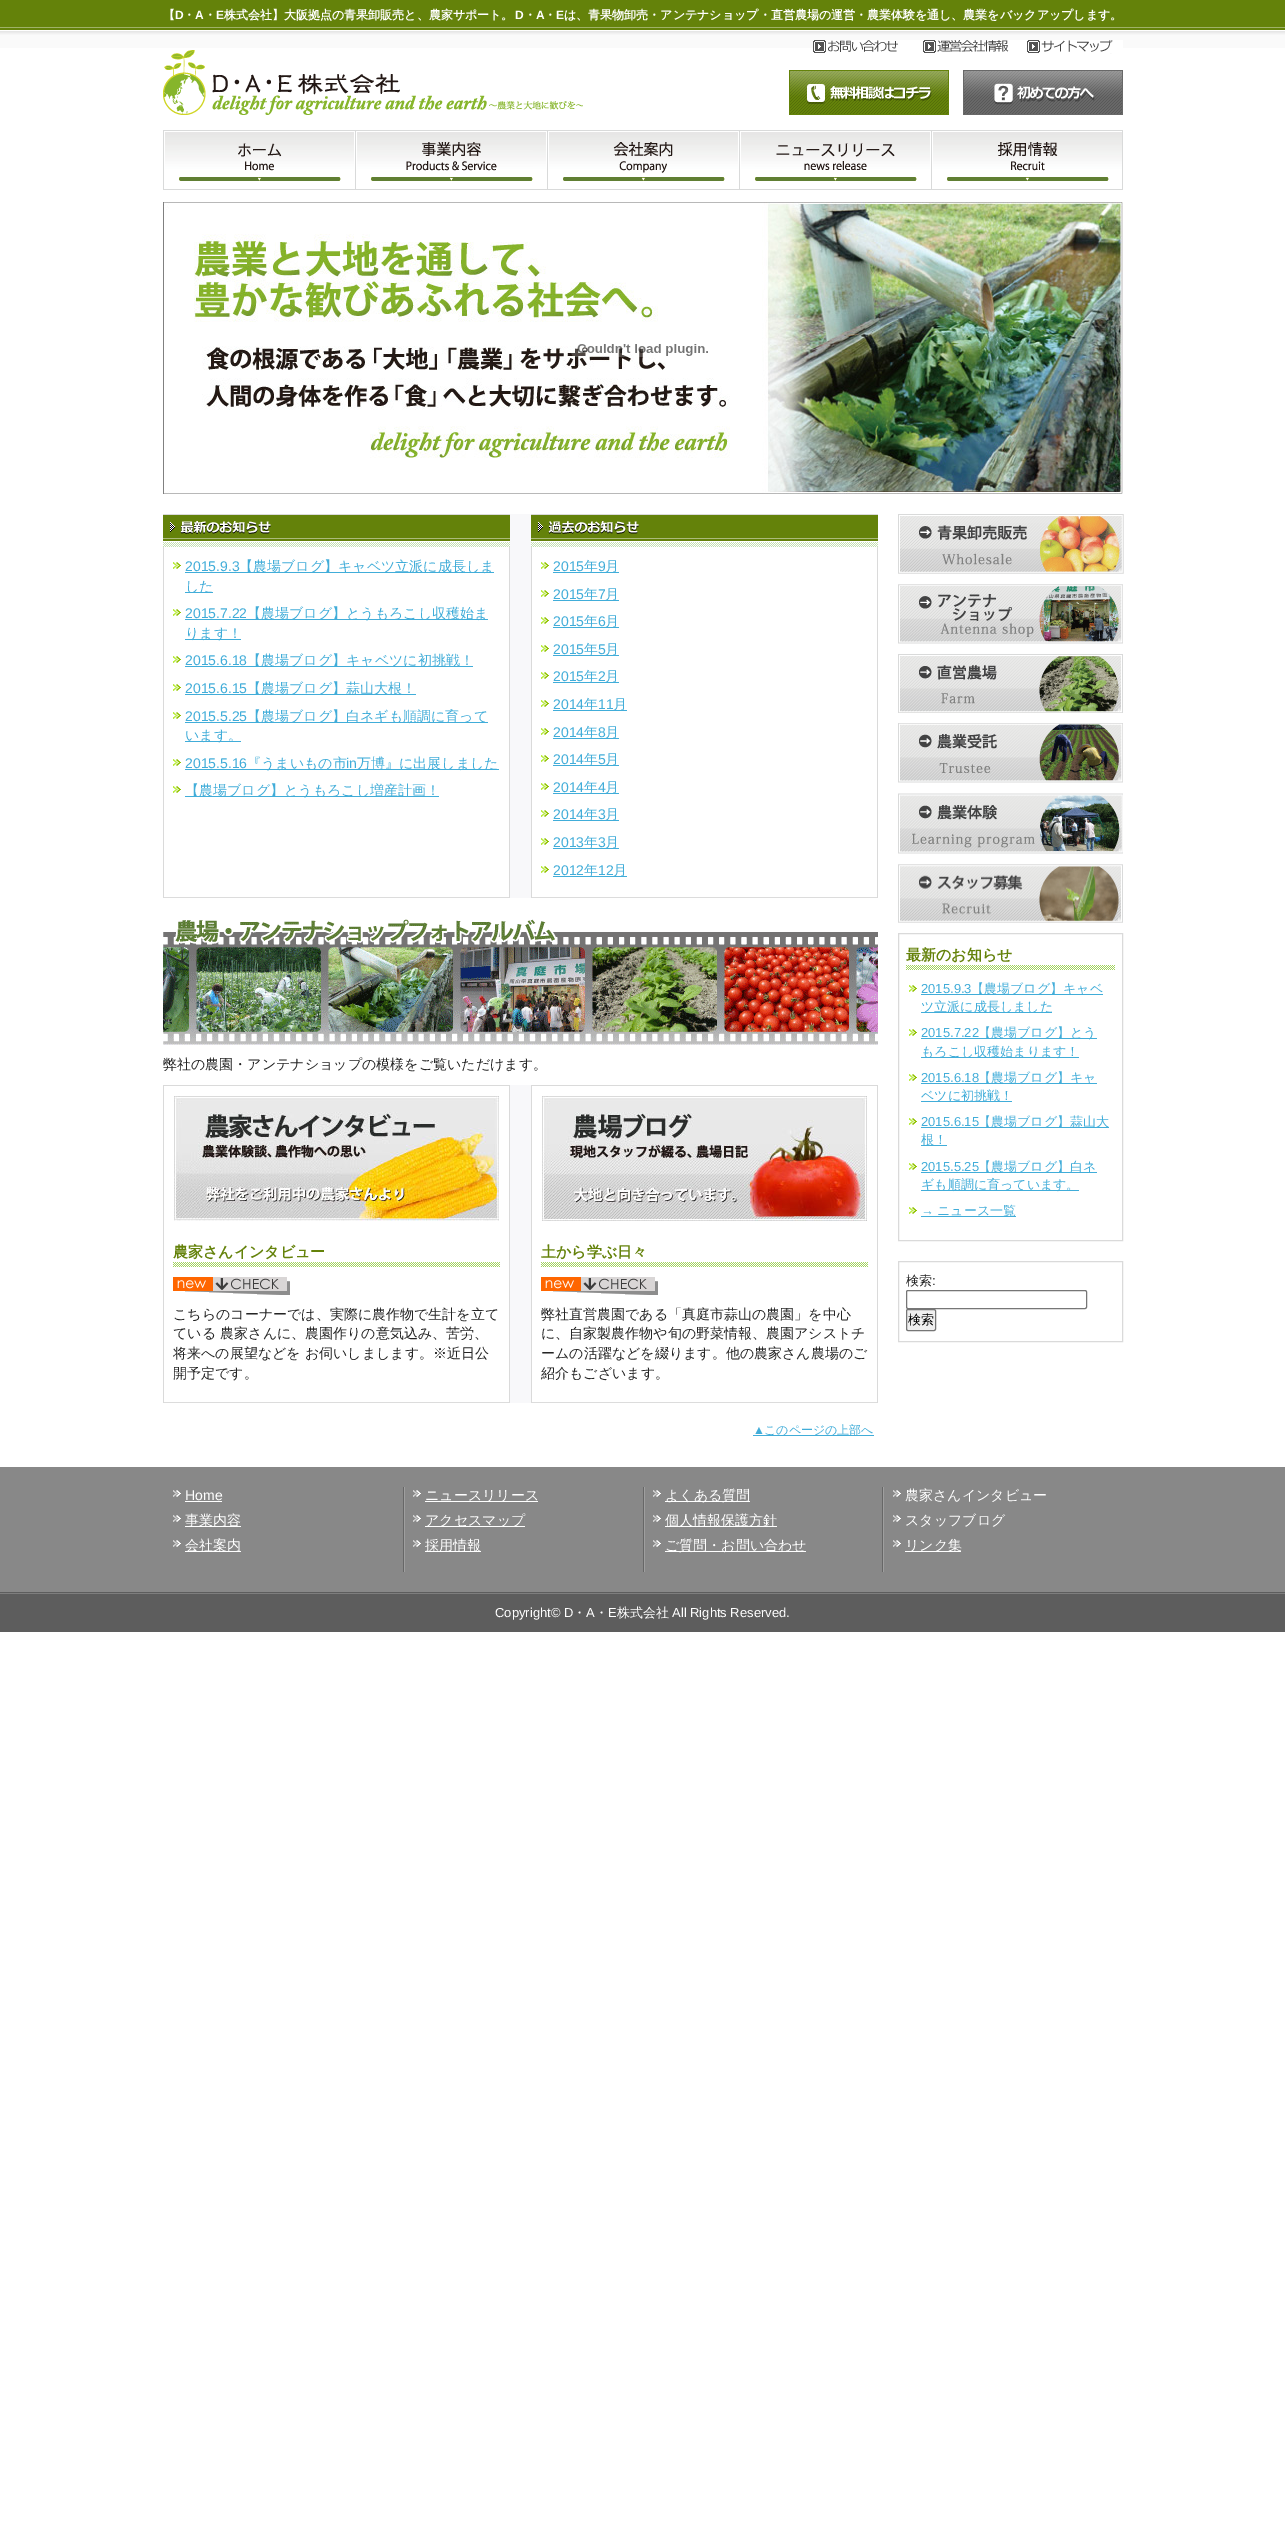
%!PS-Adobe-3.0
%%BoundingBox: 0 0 1285 2521
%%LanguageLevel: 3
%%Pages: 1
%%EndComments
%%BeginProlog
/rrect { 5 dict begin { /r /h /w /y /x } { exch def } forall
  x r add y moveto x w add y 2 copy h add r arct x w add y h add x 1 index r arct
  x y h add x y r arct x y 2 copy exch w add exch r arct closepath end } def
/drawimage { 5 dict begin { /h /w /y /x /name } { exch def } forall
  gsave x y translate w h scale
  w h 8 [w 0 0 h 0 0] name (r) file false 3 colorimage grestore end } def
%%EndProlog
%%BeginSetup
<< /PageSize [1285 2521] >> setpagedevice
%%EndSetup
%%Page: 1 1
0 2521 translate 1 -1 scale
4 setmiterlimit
1 setgray
0 0 1285 2521 rectfill
(images/1.raw) 0 0 1285 48 drawimage
(images/2.raw) 813 40 110 13 drawimage
(images/3.raw) 923 40 104 13 drawimage
(images/4.raw) 1027 40 96 14 drawimage
(images/5.raw) 163 50 420 65 drawimage
(images/6.raw) 789 70 160 45 drawimage
(images/7.raw) 963 70 160 45 drawimage
(images/8.raw) 163 130 960 60 drawimage
(images/9.raw) 179 143 162 38 drawimage
(images/10.raw) 371 142 162 39 drawimage
(images/11.raw) 563 142 162 39 drawimage
(images/12.raw) 755 143 162 38 drawimage
(images/13.raw) 947 142 162 39 drawimage
(images/14.raw) 163 202 960 292 drawimage
(images/15.raw) 571 344 137 13 drawimage
(images/16.raw) 163 514 715 384 drawimage
0.855 setgray
163 514 347 1 rectfill
(images/17.raw) 163 515 347 32 drawimage
(images/18.raw) 173 562 8 7 drawimage
0.255 0.678 0.851 setrgbcolor
185 572 309 1 rectfill
185 592 28 1 rectfill
(images/18.raw) 173 609 8 7 drawimage
185 619 303 1 rectfill
185 639 56 1 rectfill
(images/18.raw) 173 656 8 7 drawimage
185 666 288 1 rectfill
(images/18.raw) 173 684 8 7 drawimage
185 694 231 1 rectfill
(images/18.raw) 173 712 8 7 drawimage
185 722 303 1 rectfill
185 741 56 1 rectfill
(images/18.raw) 173 759 8 7 drawimage
185 769 314 1 rectfill
(images/18.raw) 173 786 8 7 drawimage
185 796 254 1 rectfill
0.855 setgray
531 514 347 1 rectfill
(images/19.raw) 531 515 347 32 drawimage
(images/18.raw) 541 562 8 7 drawimage
0.255 0.678 0.851 setrgbcolor
553 572 66 1 rectfill
(images/18.raw) 541 590 8 7 drawimage
553 600 66 1 rectfill
(images/18.raw) 541 617 8 7 drawimage
553 627 66 1 rectfill
(images/18.raw) 541 645 8 7 drawimage
553 655 66 1 rectfill
(images/18.raw) 541 672 8 7 drawimage
553 682 66 1 rectfill
(images/18.raw) 541 700 8 7 drawimage
553 710 74 1 rectfill
(images/18.raw) 541 728 8 7 drawimage
553 738 66 1 rectfill
(images/18.raw) 541 755 8 7 drawimage
553 765 66 1 rectfill
(images/18.raw) 541 783 8 7 drawimage
553 793 66 1 rectfill
(images/18.raw) 541 810 8 7 drawimage
553 820 66 1 rectfill
(images/18.raw) 541 838 8 7 drawimage
553 848 66 1 rectfill
(images/18.raw) 541 866 8 7 drawimage
553 876 74 1 rectfill
(images/20.raw) 163 919 715 126 drawimage
(images/21.raw) 163 1085 715 318 drawimage
0.855 setgray
163 1085 347 1 rectfill
(images/22.raw) 174 1096 325 125 drawimage
(images/23.raw) 173 1262 327 5 drawimage
(images/24.raw) 173 1277 117 18 drawimage
531 1085 347 1 rectfill
(images/25.raw) 542 1096 325 125 drawimage
(images/23.raw) 541 1262 327 5 drawimage
(images/24.raw) 541 1277 117 18 drawimage
0.255 0.678 0.851 setrgbcolor
753 1435 121 1 rectfill
(images/26.raw) 898 514 226 60 drawimage
(images/27.raw) 898 584 225 60 drawimage
(images/28.raw) 898 654 225 59 drawimage
(images/29.raw) 898 723 225 60 drawimage
(images/30.raw) 898 793 225 61 drawimage
(images/31.raw) 898 864 225 59 drawimage
0.855 setgray
898.5 933.5 224 307 rectstroke
(images/32.raw) 906 965 209 5 drawimage
(images/18.raw) 909 985 8 7 drawimage
0.255 0.678 0.851 setrgbcolor
921 994 182 1 rectfill
921 1012 131 1 rectfill
(images/18.raw) 909 1029 8 7 drawimage
921 1038 176 1 rectfill
921 1057 158 1 rectfill
(images/18.raw) 909 1074 8 7 drawimage
921 1083 176 1 rectfill
921 1101 91 1 rectfill
(images/18.raw) 909 1118 8 7 drawimage
921 1127 188 1 rectfill
921 1145 26 1 rectfill
(images/18.raw) 909 1163 8 7 drawimage
921 1172 176 1 rectfill
921 1190 158 1 rectfill
(images/18.raw) 909 1207 8 7 drawimage
921 1216 95 1 rectfill
0.855 setgray
898.5 1261.5 224 80 rectstroke
0.463 setgray
906.5 1290.5 180 18 1.5 rrect stroke
0.937 setgray
906.5 1309.5 29 21 1.5 rrect gsave fill grestore
0.463 setgray
stroke
0.533 setgray
0 1467 1285 125 rectfill
0.365 setgray
0 1592 1285 1 rectfill
(images/33.raw) 403 1487 481 85 drawimage
(images/34.raw) 173 1490 8 7 drawimage
1 setgray
185 1501 37 1 rectfill
(images/34.raw) 173 1515 8 7 drawimage
185 1526 56 1 rectfill
(images/34.raw) 173 1540 8 7 drawimage
185 1551 56 1 rectfill
(images/34.raw) 413 1490 8 7 drawimage
425 1501 113 1 rectfill
(images/34.raw) 413 1515 8 7 drawimage
425 1526 100 1 rectfill
(images/34.raw) 413 1540 8 7 drawimage
425 1551 56 1 rectfill
(images/34.raw) 653 1490 8 7 drawimage
665 1501 85 1 rectfill
(images/34.raw) 653 1515 8 7 drawimage
665 1526 112 1 rectfill
(images/34.raw) 653 1540 8 7 drawimage
665 1551 141 1 rectfill
(images/34.raw) 893 1490 8 7 drawimage
(images/34.raw) 893 1515 8 7 drawimage
(images/34.raw) 893 1540 8 7 drawimage
905 1551 56 1 rectfill
0.365 setgray
0 1594 1285 38 rectfill
0.494 setgray
0 1593 1285 1 rectfill
/WenQuanYiZenHei-Bold [12 0 0 -12 0 0] selectfont
1 setgray
163 19 moveto (【) show
/LiberationSans-Bold [12 0 0 -12 0 0] selectfont
175 19 moveto (D) show
/WenQuanYiZenHei-Bold [12 0 0 -12 0 0] selectfont
183 19 moveto (・) show
/LiberationSans-Bold [12 0 0 -12 0 0] selectfont
195 19 moveto (A) show
/WenQuanYiZenHei-Bold [12 0 0 -12 0 0] selectfont
204 19 moveto (・) show
/LiberationSans-Bold [12 0 0 -12 0 0] selectfont
216 19 moveto (E) show
/WenQuanYiZenHei-Bold [12 0 0 -12 0 0] selectfont
224 19 moveto (株式会社】大阪拠点の青果卸販売と、農家サポート。) show
/LiberationSans-Bold [12 0 0 -12 0 0] selectfont
515 19 moveto (D) show
/WenQuanYiZenHei-Bold [12 0 0 -12 0 0] selectfont
524 19 moveto (・) show
/LiberationSans-Bold [12 0 0 -12 0 0] selectfont
536 19 moveto (A) show
/WenQuanYiZenHei-Bold [12 0 0 -12 0 0] selectfont
544 19 moveto (・) show
/LiberationSans-Bold [12 0 0 -12 0 0] selectfont
556 19 moveto (E) show
/WenQuanYiZenHei-Bold [12 0 0 -12 0 0] selectfont
564 19 moveto (は、青果物卸売・アンテナショップ・直営農場の運営・農業体験を通し、農業をバックアップします。) show
/LiberationSans-Regular [14 0 0 -14 0 0] selectfont
0.255 0.678 0.851 setrgbcolor
185 571 moveto (2015.9.3) show
/WenQuanYiZenHei-Medium [14 0 0 -14 0 0] selectfont
239 571 moveto (【農場ブログ】キャベツ立派に成長しま) show
185 591 moveto (した) show
/LiberationSans-Regular [14 0 0 -14 0 0] selectfont
185 618 moveto (2015.7.22) show
/WenQuanYiZenHei-Medium [14 0 0 -14 0 0] selectfont
247 618 moveto (【農場ブログ】とうもろこし収穫始ま) show
185 638 moveto (ります！) show
/LiberationSans-Regular [14 0 0 -14 0 0] selectfont
185 665 moveto (2015.6.18) show
/WenQuanYiZenHei-Medium [14 0 0 -14 0 0] selectfont
247 665 moveto (【農場ブログ】キャベツに初挑戦！) show
/LiberationSans-Regular [14 0 0 -14 0 0] selectfont
185 693 moveto (2015.6.15) show
/WenQuanYiZenHei-Medium [14 0 0 -14 0 0] selectfont
247 693 moveto (【農場ブログ】蒜山大根！) show
/LiberationSans-Regular [14 0 0 -14 0 0] selectfont
185 721 moveto (2015.5.25) show
/WenQuanYiZenHei-Medium [14 0 0 -14 0 0] selectfont
247 721 moveto (【農場ブログ】白ネギも順調に育って) show
185 740 moveto (います。) show
/LiberationSans-Regular [14 0 0 -14 0 0] selectfont
185 768 moveto (2015.5.16) show
/WenQuanYiZenHei-Medium [14 0 0 -14 0 0] selectfont
247 768 moveto (『うまいもの市) show
/LiberationSans-Regular [14 0 0 -14 0 0] selectfont
346 768 moveto (in) show
/WenQuanYiZenHei-Medium [14 0 0 -14 0 0] selectfont
357 768 moveto (万博』に出展しました) show
185 795 moveto (【農場ブログ】とうもろこし増産計画！) show
/LiberationSans-Regular [14 0 0 -14 0 0] selectfont
553 571 moveto (2015) show
/WenQuanYiZenHei-Medium [14 0 0 -14 0 0] selectfont
584 571 moveto (年) show
/LiberationSans-Regular [14 0 0 -14 0 0] selectfont
598 571 moveto (9) show
/WenQuanYiZenHei-Medium [14 0 0 -14 0 0] selectfont
605 571 moveto (月) show
/LiberationSans-Regular [14 0 0 -14 0 0] selectfont
553 599 moveto (2015) show
/WenQuanYiZenHei-Medium [14 0 0 -14 0 0] selectfont
584 599 moveto (年) show
/LiberationSans-Regular [14 0 0 -14 0 0] selectfont
598 599 moveto (7) show
/WenQuanYiZenHei-Medium [14 0 0 -14 0 0] selectfont
605 599 moveto (月) show
/LiberationSans-Regular [14 0 0 -14 0 0] selectfont
553 626 moveto (2015) show
/WenQuanYiZenHei-Medium [14 0 0 -14 0 0] selectfont
584 626 moveto (年) show
/LiberationSans-Regular [14 0 0 -14 0 0] selectfont
598 626 moveto (6) show
/WenQuanYiZenHei-Medium [14 0 0 -14 0 0] selectfont
605 626 moveto (月) show
/LiberationSans-Regular [14 0 0 -14 0 0] selectfont
553 654 moveto (2015) show
/WenQuanYiZenHei-Medium [14 0 0 -14 0 0] selectfont
584 654 moveto (年) show
/LiberationSans-Regular [14 0 0 -14 0 0] selectfont
598 654 moveto (5) show
/WenQuanYiZenHei-Medium [14 0 0 -14 0 0] selectfont
605 654 moveto (月) show
/LiberationSans-Regular [14 0 0 -14 0 0] selectfont
553 681 moveto (2015) show
/WenQuanYiZenHei-Medium [14 0 0 -14 0 0] selectfont
584 681 moveto (年) show
/LiberationSans-Regular [14 0 0 -14 0 0] selectfont
598 681 moveto (2) show
/WenQuanYiZenHei-Medium [14 0 0 -14 0 0] selectfont
605 681 moveto (月) show
/LiberationSans-Regular [14 0 0 -14 0 0] selectfont
553 709 moveto (2014) show
/WenQuanYiZenHei-Medium [14 0 0 -14 0 0] selectfont
584 709 moveto (年) show
/LiberationSans-Regular [14 0 0 -14 0 0] selectfont
598 709 moveto (11) show
/WenQuanYiZenHei-Medium [14 0 0 -14 0 0] selectfont
613 709 moveto (月) show
/LiberationSans-Regular [14 0 0 -14 0 0] selectfont
553 737 moveto (2014) show
/WenQuanYiZenHei-Medium [14 0 0 -14 0 0] selectfont
584 737 moveto (年) show
/LiberationSans-Regular [14 0 0 -14 0 0] selectfont
598 737 moveto (8) show
/WenQuanYiZenHei-Medium [14 0 0 -14 0 0] selectfont
605 737 moveto (月) show
/LiberationSans-Regular [14 0 0 -14 0 0] selectfont
553 764 moveto (2014) show
/WenQuanYiZenHei-Medium [14 0 0 -14 0 0] selectfont
584 764 moveto (年) show
/LiberationSans-Regular [14 0 0 -14 0 0] selectfont
598 764 moveto (5) show
/WenQuanYiZenHei-Medium [14 0 0 -14 0 0] selectfont
605 764 moveto (月) show
/LiberationSans-Regular [14 0 0 -14 0 0] selectfont
553 792 moveto (2014) show
/WenQuanYiZenHei-Medium [14 0 0 -14 0 0] selectfont
584 792 moveto (年) show
/LiberationSans-Regular [14 0 0 -14 0 0] selectfont
598 792 moveto (4) show
/WenQuanYiZenHei-Medium [14 0 0 -14 0 0] selectfont
605 792 moveto (月) show
/LiberationSans-Regular [14 0 0 -14 0 0] selectfont
553 819 moveto (2014) show
/WenQuanYiZenHei-Medium [14 0 0 -14 0 0] selectfont
584 819 moveto (年) show
/LiberationSans-Regular [14 0 0 -14 0 0] selectfont
598 819 moveto (3) show
/WenQuanYiZenHei-Medium [14 0 0 -14 0 0] selectfont
605 819 moveto (月) show
/LiberationSans-Regular [14 0 0 -14 0 0] selectfont
553 847 moveto (2013) show
/WenQuanYiZenHei-Medium [14 0 0 -14 0 0] selectfont
584 847 moveto (年) show
/LiberationSans-Regular [14 0 0 -14 0 0] selectfont
598 847 moveto (3) show
/WenQuanYiZenHei-Medium [14 0 0 -14 0 0] selectfont
605 847 moveto (月) show
/LiberationSans-Regular [14 0 0 -14 0 0] selectfont
553 875 moveto (2012) show
/WenQuanYiZenHei-Medium [14 0 0 -14 0 0] selectfont
584 875 moveto (年) show
/LiberationSans-Regular [14 0 0 -14 0 0] selectfont
598 875 moveto (12) show
/WenQuanYiZenHei-Medium [14 0 0 -14 0 0] selectfont
613 875 moveto (月) show
0.145 setgray
163 1069 moveto (弊社の農園・アンテナショップの模様をご覧いただけます。) show
/WenQuanYiZenHei-Bold [15 0 0 -15 0 0] selectfont
0.392 0.51 0.039 setrgbcolor
173 1257 moveto (農家さんインタビュー) show
/WenQuanYiZenHei-Medium [14 0 0 -14 0 0] selectfont
0.145 setgray
173 1319 moveto (こちらのコーナーでは、実際に農作物で生計を立て) show
173 1338 moveto (ている 農家さんに、農園作りの意気込み、苦労、) show
173 1358 moveto (将来への展望などを お伺いしまします。※近日公) show
173 1378 moveto (開予定です。) show
/WenQuanYiZenHei-Bold [15 0 0 -15 0 0] selectfont
0.392 0.51 0.039 setrgbcolor
541 1257 moveto (土から学ぶ日々) show
/WenQuanYiZenHei-Medium [14 0 0 -14 0 0] selectfont
0.145 setgray
541 1319 moveto (弊社直営農園である「真庭市蒜山の農園」を中心) show
541 1338 moveto (に、自家製農作物や旬の野菜情報、農園アシストチ) show
541 1358 moveto (ームの活躍などを綴ります。他の農家さん農場のご) show
541 1378 moveto (紹介もございます。) show
/LiberationSans-Regular [12 0 0 -12 0 0] selectfont
0.255 0.678 0.851 setrgbcolor
753 1434 moveto (▲) show
/WenQuanYiZenHei-Medium [12 0 0 -12 0 0] selectfont
764 1434 moveto (このページの上部へ) show
/WenQuanYiZenHei-Bold [15 0 0 -15 0 0] selectfont
0.392 0.51 0.039 setrgbcolor
906 960 moveto (最新のお知らせ) show
/LiberationSans-Regular [13 0 0 -13 0 0] selectfont
0.255 0.678 0.851 setrgbcolor
921 993 moveto (2015.9.3) show
/WenQuanYiZenHei-Medium [13 0 0 -13 0 0] selectfont
971 993 moveto (【農場ブログ】キャベ) show
921 1011 moveto (ツ立派に成長しました) show
/LiberationSans-Regular [13 0 0 -13 0 0] selectfont
921 1037 moveto (2015.7.22) show
/WenQuanYiZenHei-Medium [13 0 0 -13 0 0] selectfont
978 1037 moveto (【農場ブログ】とう) show
921 1056 moveto (もろこし収穫始まります！) show
/LiberationSans-Regular [13 0 0 -13 0 0] selectfont
921 1082 moveto (2015.6.18) show
/WenQuanYiZenHei-Medium [13 0 0 -13 0 0] selectfont
978 1082 moveto (【農場ブログ】キャ) show
921 1100 moveto (ベツに初挑戦！) show
/LiberationSans-Regular [13 0 0 -13 0 0] selectfont
921 1126 moveto (2015.6.15) show
/WenQuanYiZenHei-Medium [13 0 0 -13 0 0] selectfont
978 1126 moveto (【農場ブログ】蒜山大) show
921 1144 moveto (根！) show
/LiberationSans-Regular [13 0 0 -13 0 0] selectfont
921 1171 moveto (2015.5.25) show
/WenQuanYiZenHei-Medium [13 0 0 -13 0 0] selectfont
978 1171 moveto (【農場ブログ】白ネ) show
921 1189 moveto (ギも順調に育っています。) show
/LiberationSans-Regular [13 0 0 -13 0 0] selectfont
921 1215 moveto (→) show
/WenQuanYiZenHei-Medium [13 0 0 -13 0 0] selectfont
937 1215 moveto (ニュース一覧) show
0.145 setgray
906 1285 moveto (検索) show
/LiberationSans-Regular [13 0 0 -13 0 0] selectfont
932 1285 moveto (:) show
/WenQuanYiZenHei-Medium [13 0 0 -13 0 0] selectfont
0 setgray
908 1324 moveto (検索) show
/LiberationSans-Regular [14 0 0 -14 0 0] selectfont
1 setgray
185 1500 moveto (Home) show
/WenQuanYiZenHei-Medium [14 0 0 -14 0 0] selectfont
185 1525 moveto (事業内容) show
185 1550 moveto (会社案内) show
425 1500 moveto (ニュースリリース) show
425 1525 moveto (アクセスマップ) show
425 1550 moveto (採用情報) show
665 1500 moveto (よくある質問) show
665 1525 moveto (個人情報保護方針) show
665 1550 moveto (ご質問・お問い合わせ) show
905 1500 moveto (農家さんインタビュー) show
905 1525 moveto (スタッフブログ) show
905 1550 moveto (リンク集) show
/LiberationSans-Regular [13 0 0 -13 0 0] selectfont
495 1617 moveto (Copyright© D) show
/WenQuanYiZenHei-Medium [13 0 0 -13 0 0] selectfont
573 1617 moveto (・) show
/LiberationSans-Regular [13 0 0 -13 0 0] selectfont
586 1617 moveto (A) show
/WenQuanYiZenHei-Medium [13 0 0 -13 0 0] selectfont
595 1617 moveto (・) show
/LiberationSans-Regular [13 0 0 -13 0 0] selectfont
608 1617 moveto (E) show
/WenQuanYiZenHei-Medium [13 0 0 -13 0 0] selectfont
617 1617 moveto (株式会社) show
/LiberationSans-Regular [13 0 0 -13 0 0] selectfont
672 1617 moveto (All Rights Reserved.) show
showpage
%%EOF
